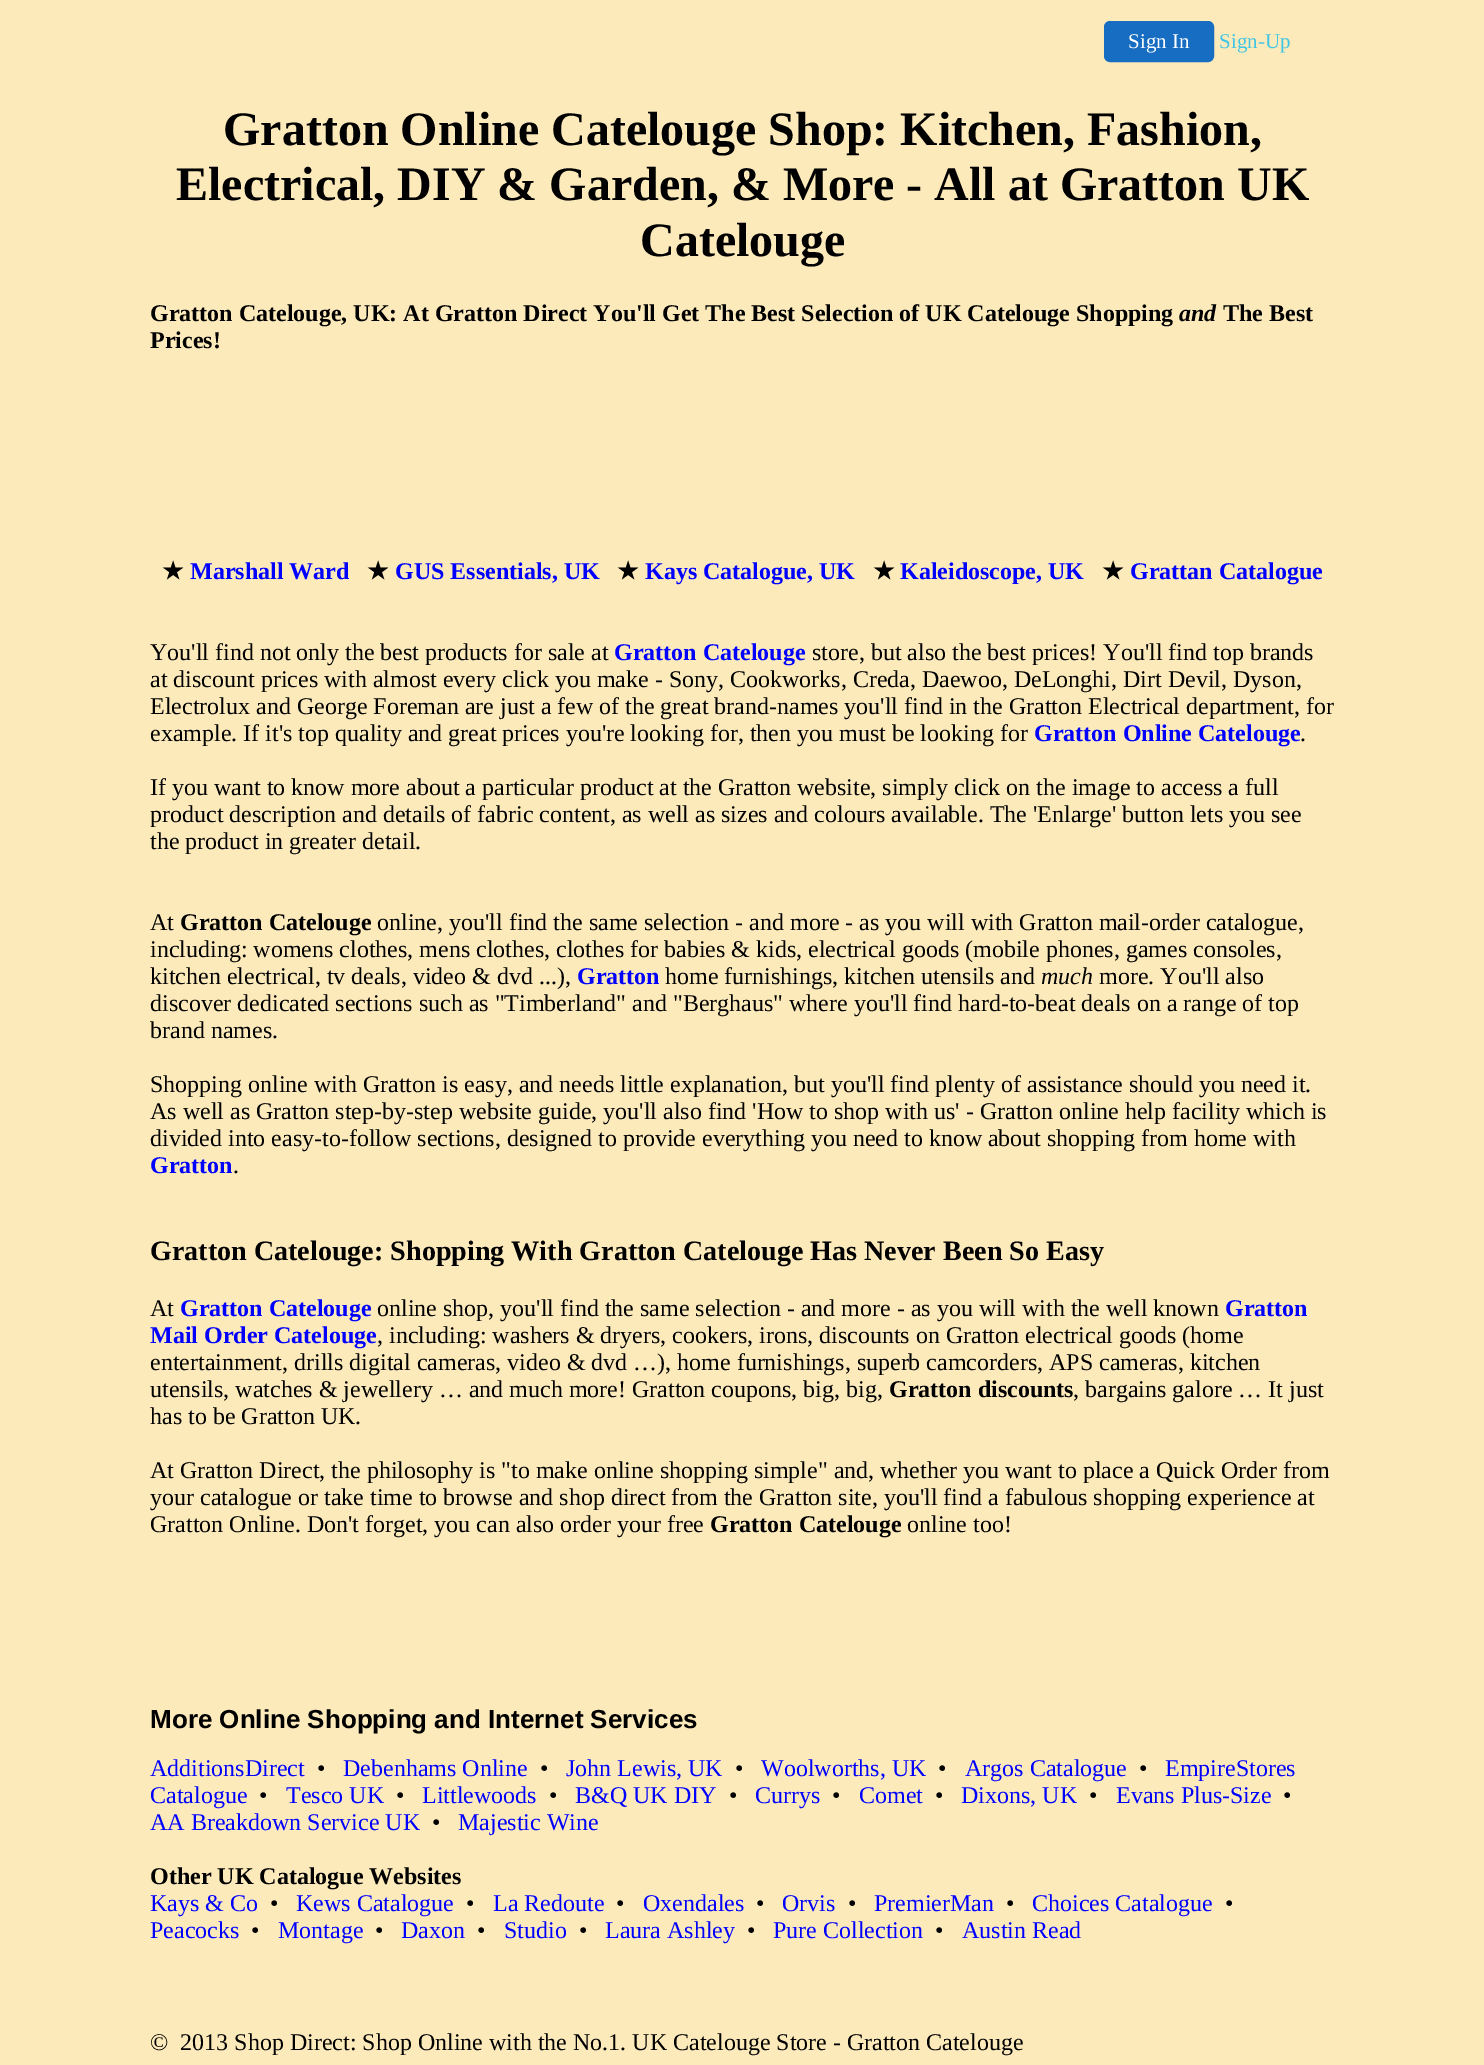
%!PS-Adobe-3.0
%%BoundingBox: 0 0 1484 2065
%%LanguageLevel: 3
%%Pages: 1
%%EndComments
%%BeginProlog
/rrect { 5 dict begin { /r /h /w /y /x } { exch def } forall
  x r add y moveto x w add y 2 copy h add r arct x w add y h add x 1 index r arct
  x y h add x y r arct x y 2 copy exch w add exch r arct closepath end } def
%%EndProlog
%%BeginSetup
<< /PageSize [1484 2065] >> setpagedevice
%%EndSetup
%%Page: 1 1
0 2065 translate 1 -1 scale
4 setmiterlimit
0.988 0.918 0.733 setrgbcolor
0 0 1484 2065 rectfill
0.086 0.427 0.761 setrgbcolor
1105 22 108 39 5 rrect gsave fill grestore
2 setlinewidth
stroke
/LiberationSerif-Regular [21 0 0 -21 0 0] selectfont
1 setgray
1128 48 moveto (Sign In) show
0.255 0.773 0.894 setrgbcolor
1219 48 moveto (Sign-Up) show
/LiberationSerif-Bold [48 0 0 -48 0 0] selectfont
0 setgray
223 145 moveto (Gratton Online Catelouge Shop: Kitchen, Fashion,) show
176 200 moveto (Electrical, DIY & Garden, & More - All at Gratton UK) show
640 256 moveto (Catelouge) show
/LiberationSerif-Bold [24 0 0 -24 0 0] selectfont
150 321 moveto (Gratton Catelouge, UK: At Gratton Direct You'll Get The Best Selection of UK Catelouge Shopping) show
/LiberationSerif-BoldItalic [24 0 0 -24 0 0] selectfont
1179 321 moveto (and) show
/LiberationSerif-Bold [24 0 0 -24 0 0] selectfont
1223 321 moveto (The Best) show
150 348 moveto (Prices!) show
/DejaVuSans-Bold [24 0 0 -24 0 0] selectfont
162 579 moveto (★) show
/LiberationSerif-Bold [24 0 0 -24 0 0] selectfont
0 0 1 setrgbcolor
190 579 moveto (Marshall Ward) show
/DejaVuSans-Bold [24 0 0 -24 0 0] selectfont
0 setgray
367 579 moveto (★) show
/LiberationSerif-Bold [24 0 0 -24 0 0] selectfont
0 0 1 setrgbcolor
395 579 moveto (GUS Essentials, UK) show
/DejaVuSans-Bold [24 0 0 -24 0 0] selectfont
0 setgray
617 579 moveto (★) show
/LiberationSerif-Bold [24 0 0 -24 0 0] selectfont
0 0 1 setrgbcolor
645 579 moveto (Kays Catalogue, UK) show
/DejaVuSans-Bold [24 0 0 -24 0 0] selectfont
0 setgray
873 579 moveto (★) show
/LiberationSerif-Bold [24 0 0 -24 0 0] selectfont
0 0 1 setrgbcolor
900 579 moveto (Kaleidoscope, UK) show
/DejaVuSans-Bold [24 0 0 -24 0 0] selectfont
0 setgray
1102 579 moveto (★) show
/LiberationSerif-Bold [24 0 0 -24 0 0] selectfont
0 0 1 setrgbcolor
1130 579 moveto (Grattan Catalogue) show
/LiberationSerif-Regular [24 0 0 -24 0 0] selectfont
0 setgray
150 660 moveto (You'll find not only the best products for sale at) show
/LiberationSerif-Bold [24 0 0 -24 0 0] selectfont
0 0 1 setrgbcolor
614 660 moveto (Gratton Catelouge) show
/LiberationSerif-Regular [24 0 0 -24 0 0] selectfont
0 setgray
812 660 moveto (store, but also the best prices! You'll find top brands) show
150 687 moveto (at discount prices with almost every click you make - Sony, Cookworks, Creda, Daewoo, DeLonghi, Dirt Devil, Dyson,) show
150 714 moveto (Electrolux and George Foreman are just a few of the great brand-names you'll find in the Gratton Electrical department, for) show
150 741 moveto (example. If it's top quality and great prices you're looking for, then you must be looking for) show
/LiberationSerif-Bold [24 0 0 -24 0 0] selectfont
0 0 1 setrgbcolor
1034 741 moveto (Gratton Online Catelouge) show
/LiberationSerif-Regular [24 0 0 -24 0 0] selectfont
0 setgray
1300 741 moveto (.) show
150 795 moveto (If you want to know more about a particular product at the Gratton website, simply click on the image to access a full) show
150 822 moveto (product description and details of fabric content, as well as sizes and colours available. The 'Enlarge' button lets you see) show
150 849 moveto (the product in greater detail.) show
150 930 moveto (At) show
/LiberationSerif-Bold [24 0 0 -24 0 0] selectfont
180 930 moveto (Gratton Catelouge) show
/LiberationSerif-Regular [24 0 0 -24 0 0] selectfont
377 930 moveto (online, you'll find the same selection - and more - as you will with Gratton mail-order catalogue,) show
150 957 moveto (including: womens clothes, mens clothes, clothes for babies & kids, electrical goods \(mobile phones, games consoles,) show
150 984 moveto (kitchen electrical, tv deals, video & dvd ...\),) show
/LiberationSerif-Bold [24 0 0 -24 0 0] selectfont
0 0 1 setrgbcolor
577 984 moveto (Gratton) show
/LiberationSerif-Regular [24 0 0 -24 0 0] selectfont
0 setgray
665 984 moveto (home furnishings, kitchen utensils and) show
/LiberationSerif-Italic [24 0 0 -24 0 0] selectfont
1041 984 moveto (much) show
/LiberationSerif-Regular [24 0 0 -24 0 0] selectfont
1099 984 moveto (more. You'll also) show
150 1011 moveto (discover dedicated sections such as "Timberland" and "Berghaus" where you'll find hard-to-beat deals on a range of top) show
150 1038 moveto (brand names.) show
150 1092 moveto (Shopping online with Gratton is easy, and needs little explanation, but you'll find plenty of assistance should you need it.) show
150 1119 moveto (As well as Gratton step-by-step website guide, you'll also find 'How to shop with us' - Gratton online help facility which is) show
150 1146 moveto (divided into easy-to-follow sections, designed to provide everything you need to know about shopping from home with) show
/LiberationSerif-Bold [24 0 0 -24 0 0] selectfont
0 0 1 setrgbcolor
150 1173 moveto (Gratton) show
/LiberationSerif-Regular [24 0 0 -24 0 0] selectfont
0 setgray
233 1173 moveto (.) show
/LiberationSerif-Bold [28.1 0 0 -28.1 0 0] selectfont
150 1260 moveto (Gratton Catelouge: Shopping With Gratton Catelouge Has Never Been So Easy) show
/LiberationSerif-Regular [24 0 0 -24 0 0] selectfont
150 1316 moveto (At) show
/LiberationSerif-Bold [24 0 0 -24 0 0] selectfont
0 0 1 setrgbcolor
180 1316 moveto (Gratton Catelouge) show
/LiberationSerif-Regular [24 0 0 -24 0 0] selectfont
0 setgray
377 1316 moveto (online shop, you'll find the same selection - and more - as you will with the well known) show
/LiberationSerif-Bold [24 0 0 -24 0 0] selectfont
0 0 1 setrgbcolor
1225 1316 moveto (Gratton) show
150 1343 moveto (Mail Order Catelouge) show
/LiberationSerif-Regular [24 0 0 -24 0 0] selectfont
0 setgray
377 1343 moveto (, including: washers & dryers, cookers, irons, discounts on Gratton electrical goods \(home) show
150 1370 moveto (entertainment, drills digital cameras, video & dvd …\), home furnishings, superb camcorders, APS cameras, kitchen) show
150 1397 moveto (utensils, watches & jewellery … and much more! Gratton coupons, big, big,) show
/LiberationSerif-Bold [24 0 0 -24 0 0] selectfont
889 1397 moveto (Gratton discounts) show
/LiberationSerif-Regular [24 0 0 -24 0 0] selectfont
1073 1397 moveto (, bargains galore … It just) show
150 1424 moveto (has to be Gratton UK.) show
150 1478 moveto (At Gratton Direct, the philosophy is "to make online shopping simple" and, whether you want to place a Quick Order from) show
150 1505 moveto (your catalogue or take time to browse and shop direct from the Gratton site, you'll find a fabulous shopping experience at) show
150 1532 moveto (Gratton Online. Don't forget, you can also order your free) show
/LiberationSerif-Bold [24 0 0 -24 0 0] selectfont
710 1532 moveto (Gratton Catelouge) show
/LiberationSerif-Regular [24 0 0 -24 0 0] selectfont
907 1532 moveto (online too!) show
/LiberationSans-Bold [26 0 0 -26 0 0] selectfont
150 1728 moveto (More Online Shopping and Internet Services) show
/LiberationSerif-Regular [24 0 0 -24 0 0] selectfont
0 0 1 setrgbcolor
150 1776 moveto (AdditionsDirect) show
0 setgray
317 1776 moveto (•) show
0 0 1 setrgbcolor
343 1776 moveto (Debenhams Online) show
0 setgray
540 1776 moveto (•) show
0 0 1 setrgbcolor
566 1776 moveto (John Lewis, UK) show
0 setgray
735 1776 moveto (•) show
0 0 1 setrgbcolor
761 1776 moveto (Woolworths, UK) show
0 setgray
938 1776 moveto (•) show
0 0 1 setrgbcolor
965 1776 moveto (Argos Catalogue) show
0 setgray
1139 1776 moveto (•) show
0 0 1 setrgbcolor
1165 1776 moveto (EmpireStores) show
150 1803 moveto (Catalogue) show
0 setgray
259 1803 moveto (•) show
0 0 1 setrgbcolor
286 1803 moveto (Tesco UK) show
0 setgray
396 1803 moveto (•) show
0 0 1 setrgbcolor
422 1803 moveto (Littlewoods) show
0 setgray
549 1803 moveto (•) show
0 0 1 setrgbcolor
575 1803 moveto (B&Q UK DIY) show
0 setgray
729 1803 moveto (•) show
0 0 1 setrgbcolor
755 1803 moveto (Currys) show
0 setgray
832 1803 moveto (•) show
0 0 1 setrgbcolor
859 1803 moveto (Comet) show
0 setgray
935 1803 moveto (•) show
0 0 1 setrgbcolor
961 1803 moveto (Dixons, UK) show
0 setgray
1089 1803 moveto (•) show
0 0 1 setrgbcolor
1116 1803 moveto (Evans Plus-Size) show
0 setgray
1283 1803 moveto (•) show
0 0 1 setrgbcolor
150 1830 moveto (AA Breakdown Service UK) show
0 setgray
432 1830 moveto (•) show
0 0 1 setrgbcolor
458 1830 moveto (Majestic Wine) show
/LiberationSerif-Bold [24 0 0 -24 0 0] selectfont
0 setgray
150 1884 moveto (Other UK Catalogue Websites) show
/LiberationSerif-Regular [24 0 0 -24 0 0] selectfont
0 0 1 setrgbcolor
150 1911 moveto (Kays & Co) show
0 setgray
270 1911 moveto (•) show
0 0 1 setrgbcolor
296 1911 moveto (Kews Catalogue) show
0 setgray
466 1911 moveto (•) show
0 0 1 setrgbcolor
493 1911 moveto (La Redoute) show
0 setgray
616 1911 moveto (•) show
0 0 1 setrgbcolor
643 1911 moveto (Oxendales) show
0 setgray
756 1911 moveto (•) show
0 0 1 setrgbcolor
782 1911 moveto (Orvis) show
0 setgray
848 1911 moveto (•) show
0 0 1 setrgbcolor
874 1911 moveto (PremierMan) show
0 setgray
1006 1911 moveto (•) show
0 0 1 setrgbcolor
1032 1911 moveto (Choices Catalogue) show
0 setgray
1225 1911 moveto (•) show
0 0 1 setrgbcolor
150 1938 moveto (Peacocks) show
0 setgray
251 1938 moveto (•) show
0 0 1 setrgbcolor
278 1938 moveto (Montage) show
0 setgray
375 1938 moveto (•) show
0 0 1 setrgbcolor
401 1938 moveto (Daxon) show
0 setgray
477 1938 moveto (•) show
0 0 1 setrgbcolor
504 1938 moveto (Studio) show
0 setgray
579 1938 moveto (•) show
0 0 1 setrgbcolor
605 1938 moveto (Laura Ashley) show
0 setgray
747 1938 moveto (•) show
0 0 1 setrgbcolor
773 1938 moveto (Pure Collection) show
0 setgray
935 1938 moveto (•) show
0 0 1 setrgbcolor
962 1938 moveto (Austin Read) show
0 setgray
150 2050 moveto (©  2013 Shop Direct: Shop Online with the No.1. UK Catelouge Store - Gratton Catelouge) show
showpage
%%EOF
